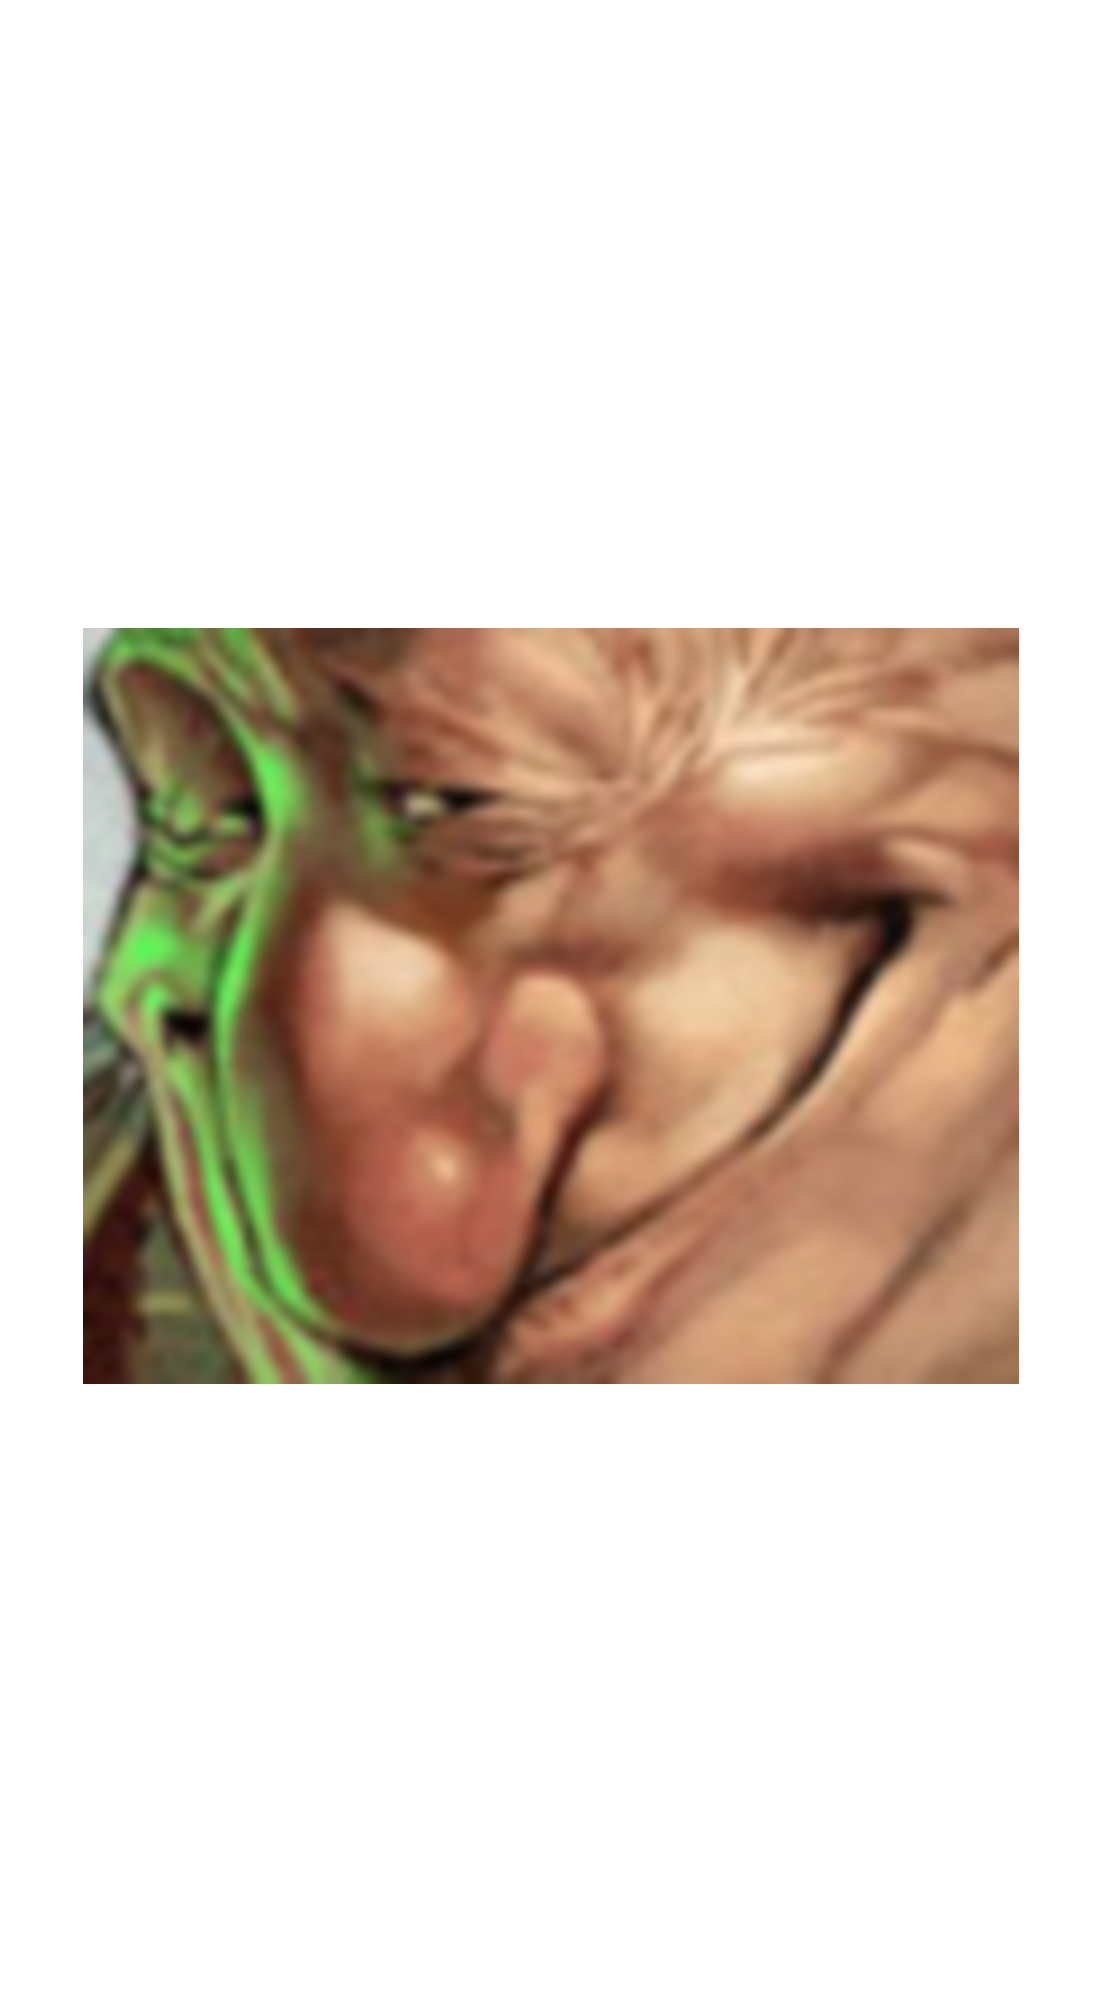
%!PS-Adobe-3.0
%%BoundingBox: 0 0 1102 2012
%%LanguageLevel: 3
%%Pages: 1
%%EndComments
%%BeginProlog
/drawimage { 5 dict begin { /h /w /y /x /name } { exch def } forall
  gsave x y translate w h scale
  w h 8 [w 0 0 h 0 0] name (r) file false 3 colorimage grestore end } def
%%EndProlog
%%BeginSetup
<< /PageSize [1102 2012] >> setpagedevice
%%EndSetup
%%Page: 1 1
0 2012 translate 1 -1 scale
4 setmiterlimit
1 setgray
0 0 1102 2012 rectfill
(images/1.raw) 83 628 936 756 drawimage
showpage
%%EOF
